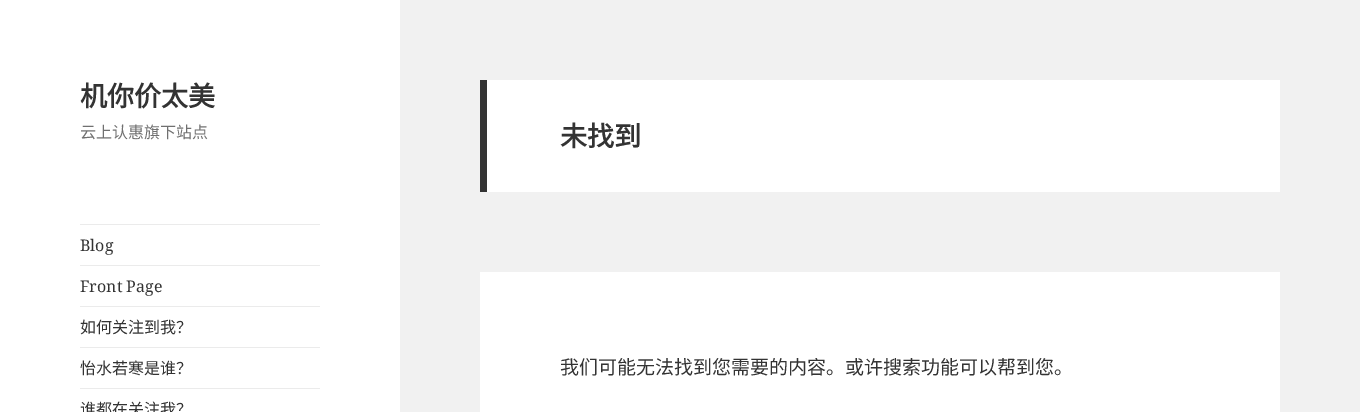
%!PS-Adobe-3.0
%%BoundingBox: 0 0 1360 412
%%LanguageLevel: 3
%%Pages: 1
%%EndComments
%%BeginProlog
%%EndProlog
%%BeginSetup
<< /PageSize [1360 412] >> setpagedevice
%%EndSetup
%%Page: 1 1
0 412 translate 1 -1 scale
4 setmiterlimit
0.945 setgray
0 0 1360 412 rectfill
1 setgray
0 0 400 412 rectfill
0.922 setgray
80 224 240 1 rectfill
80 265 240 1 rectfill
80 306 240 1 rectfill
80 347 240 1 rectfill
80 388 240 1 rectfill
1 setgray
487 80 793 112 rectfill
0.2 setgray
480 80 7 112 rectfill
1 setgray
480 272 800 140 rectfill
/NotoSansCJKSC-Bold [27 0 0 -27 0 0] selectfont
0.2 setgray
80 106 moveto (机你价太美) show
/NotoSansCJKSC-Regular [16 0 0 -16 0 0] selectfont
0.439 setgray
80 138 moveto (云上认惠旗下站点) show
/NotoSerif-Regular [16 0 0 -16 0 0] selectfont
0.2 setgray
80 251 moveto (Blog) show
80 292 moveto (Front Page) show
/NotoSansCJKSC-Regular [16 0 0 -16 0 0] selectfont
80 333 moveto (如何关注到我？) show
80 374 moveto (怡水若寒是谁？) show
80 415 moveto (谁都在关注我？) show
/NotoSansCJKSC-Bold [27 0 0 -27 0 0] selectfont
560 146 moveto (未找到) show
/NotoSansCJKSC-Regular [19 0 0 -19 0 0] selectfont
560 374 moveto (我们可能无法找到您需要的内容。或许搜索功能可以帮到您。) show
showpage
%%EOF
